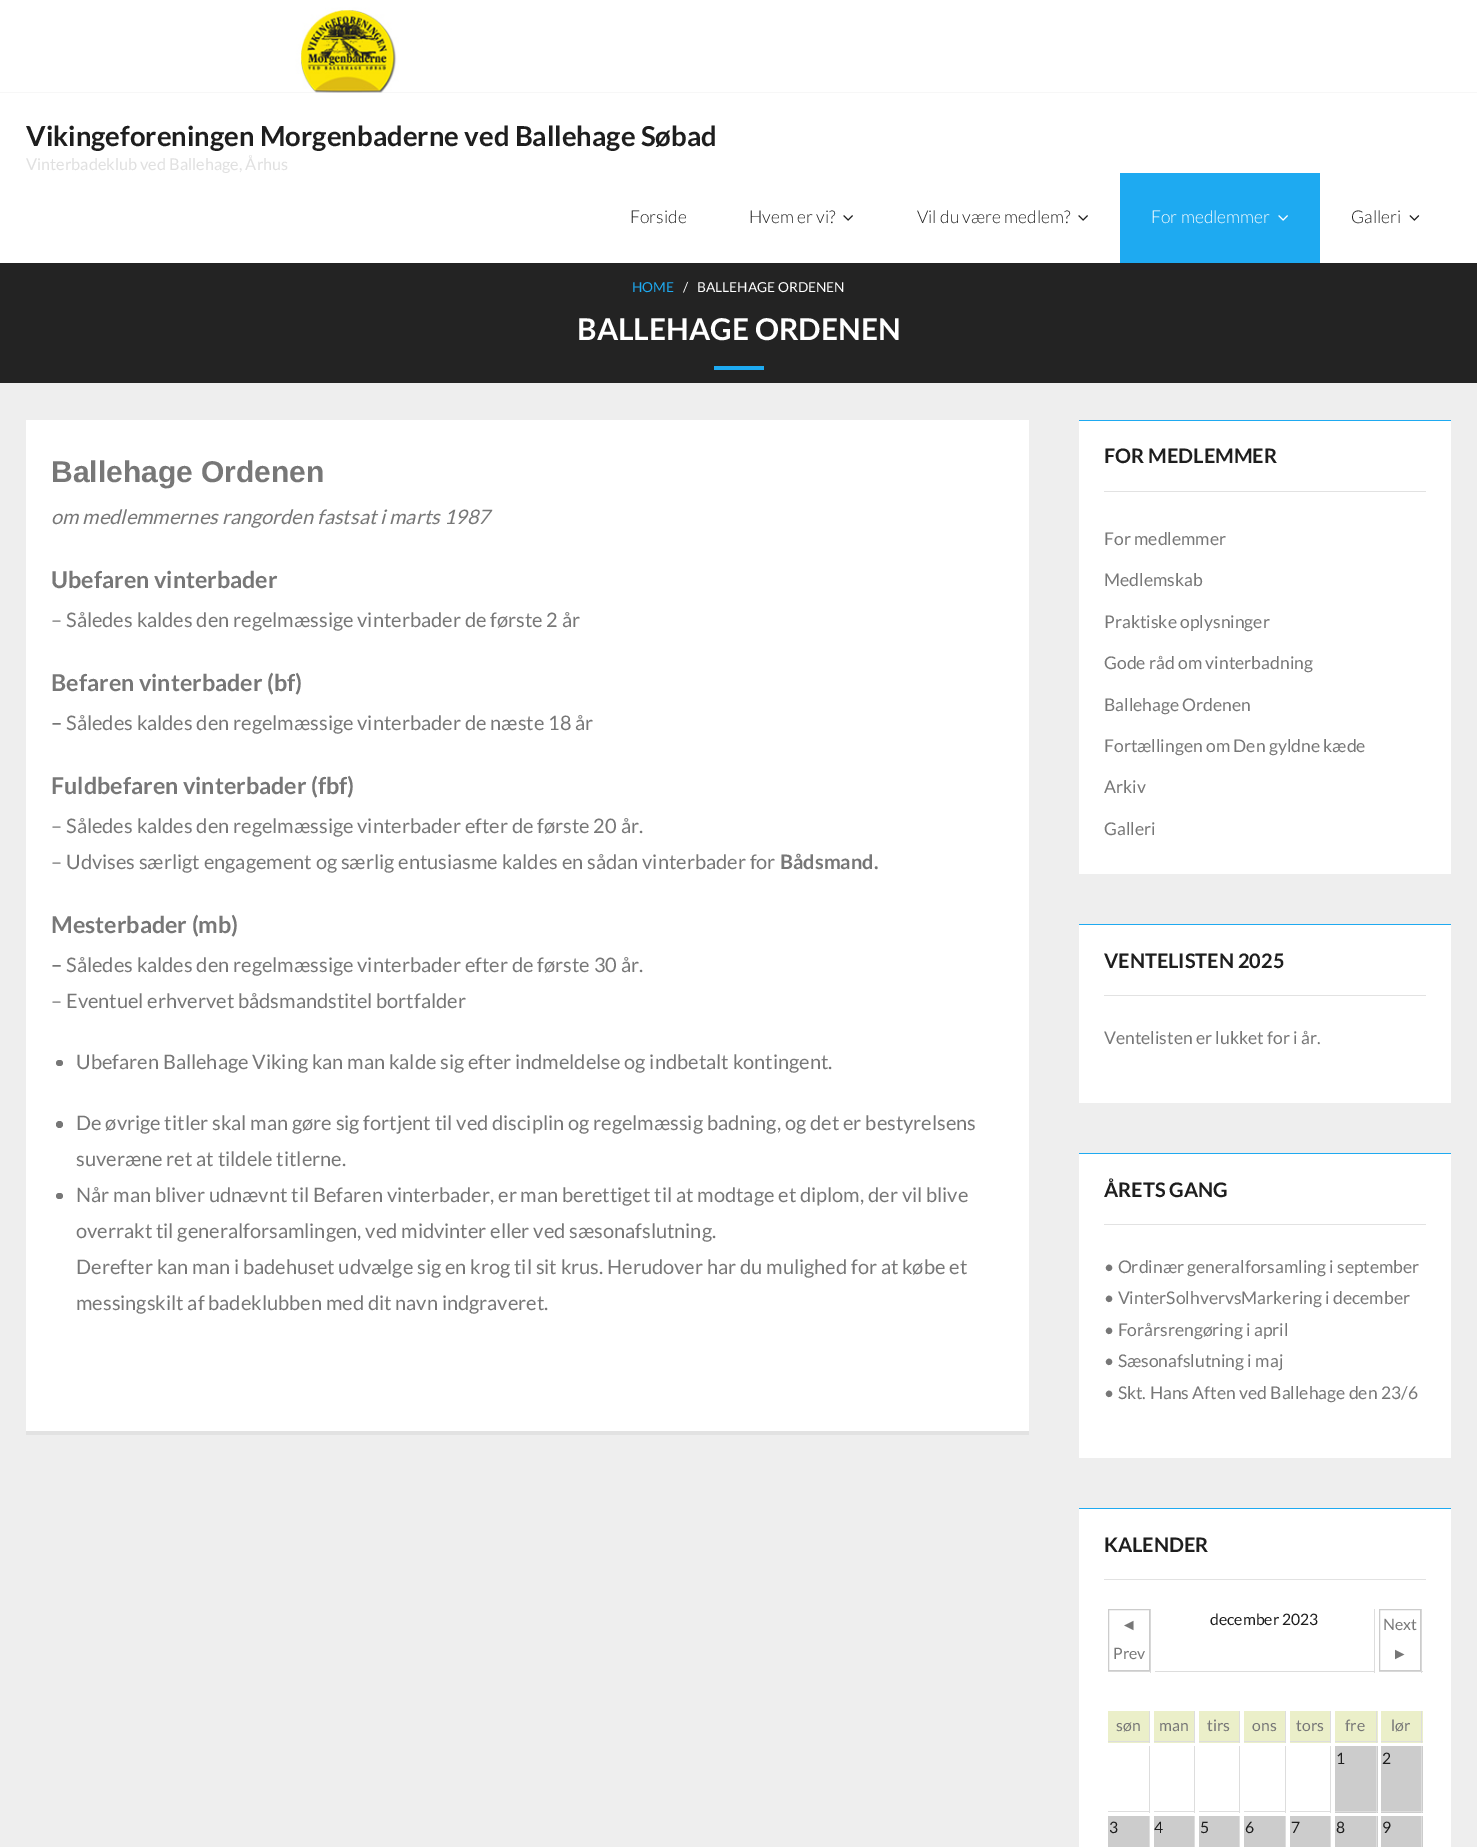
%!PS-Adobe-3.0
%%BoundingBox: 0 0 1477 1847
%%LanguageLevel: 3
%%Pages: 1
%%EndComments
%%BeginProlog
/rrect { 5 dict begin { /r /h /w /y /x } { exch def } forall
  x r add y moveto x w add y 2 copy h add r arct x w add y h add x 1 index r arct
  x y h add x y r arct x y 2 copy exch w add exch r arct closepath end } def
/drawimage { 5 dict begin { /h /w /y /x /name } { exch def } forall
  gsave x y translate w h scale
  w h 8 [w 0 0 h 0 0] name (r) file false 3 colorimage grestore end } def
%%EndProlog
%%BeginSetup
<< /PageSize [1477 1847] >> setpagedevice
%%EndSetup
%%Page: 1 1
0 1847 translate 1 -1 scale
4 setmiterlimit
0.933 setgray
0 0 1477 1847 rectfill
(images/1.raw) 0 0 1477 93 drawimage
1 setgray
0 93 1477 170 rectfill
(images/2.raw) 843 215 10 6 drawimage
(images/2.raw) 1078 215 10 6 drawimage
0.118 0.667 0.945 setrgbcolor
1120 173 200 90 rectfill
(images/3.raw) 1278 215 10 6 drawimage
(images/4.raw) 1409 215 11 6 drawimage
0.137 setgray
0 263 1477 120 rectfill
0.118 0.667 0.945 setrgbcolor
714 366 50 4 rectfill
1 setgray
26 420 1003 1011 rectfill
0.886 setgray
26 1431 1003 4 rectfill
0.467 setgray
56 1060 7 6 3 rrect fill
newpath 59.5 1124.5 3.5 0 360 arc closepath fill
56 1193 7 6 3 rrect fill
1 setgray
1079 421 372 453 rectfill
0.118 0.667 0.945 setrgbcolor
1079 420 372 1 rectfill
0.886 setgray
1104 491 322 1 rectfill
1 setgray
1079 925 372 178 rectfill
0.118 0.667 0.945 setrgbcolor
1079 924 372 1 rectfill
0.886 setgray
1104 995 322 1 rectfill
1 setgray
1079 1154 372 304 rectfill
0.118 0.667 0.945 setrgbcolor
1079 1153 372 1 rectfill
0.886 setgray
1104 1224 322 1 rectfill
1 setgray
1079 1509 372 338 rectfill
0.118 0.667 0.945 setrgbcolor
1079 1508 372 1 rectfill
0.886 setgray
1104 1579 322 1 rectfill
0.867 setgray
1150 1609 1 64 rectfill
1108 1671 43 1 rectfill
0.8 setgray
1108.5 1609.5 41 61 rectstroke
0.867 setgray
1374 1609 1 64 rectfill
1155 1671 220 1 rectfill
1421 1609 1 64 rectfill
1379 1671 44 1 rectfill
0.8 setgray
1379.5 1609.5 41 61 rectstroke
0.922 0.937 0.788 setrgbcolor
1108 1711 41 32 rectfill
0.867 setgray
1149 1711 1 32 rectfill
1108 1741 42 1 rectfill
0.922 0.937 0.788 setrgbcolor
1154 1711 40 32 rectfill
0.867 setgray
1194 1711 1 32 rectfill
1154 1741 41 1 rectfill
0.922 0.937 0.788 setrgbcolor
1199 1711 40 32 rectfill
0.867 setgray
1239 1711 1 32 rectfill
1199 1741 41 1 rectfill
0.922 0.937 0.788 setrgbcolor
1244 1711 41 32 rectfill
0.867 setgray
1285 1711 1 32 rectfill
1244 1741 42 1 rectfill
0.922 0.937 0.788 setrgbcolor
1290 1711 40 32 rectfill
0.867 setgray
1330 1711 1 32 rectfill
1290 1741 41 1 rectfill
0.922 0.937 0.788 setrgbcolor
1335 1711 43 32 rectfill
0.867 setgray
1376 1711 1 32 rectfill
1335 1741 43 1 rectfill
0.922 0.937 0.788 setrgbcolor
1381 1711 42 32 rectfill
0.867 setgray
1421 1711 1 32 rectfill
1381 1741 42 1 rectfill
1149 1746 1 67 rectfill
1108 1811 42 1 rectfill
1194 1746 1 67 rectfill
1154 1811 41 1 rectfill
1239 1746 1 67 rectfill
1199 1811 41 1 rectfill
1285 1746 1 67 rectfill
1244 1811 42 1 rectfill
1330 1746 1 67 rectfill
1290 1811 41 1 rectfill
0.8 setgray
1335 1746 43 67 rectfill
0.867 setgray
1376 1746 1 67 rectfill
1335 1811 43 1 rectfill
0.8 setgray
1381 1746 42 67 rectfill
0.867 setgray
1421 1746 1 67 rectfill
1381 1811 42 1 rectfill
0.8 setgray
1108 1816 41 31 rectfill
0.867 setgray
1149 1816 1 31 rectfill
0.8 setgray
1154 1816 40 31 rectfill
0.867 setgray
1194 1816 1 31 rectfill
0.8 setgray
1199 1816 40 31 rectfill
0.867 setgray
1239 1816 1 31 rectfill
0.8 setgray
1244 1816 41 31 rectfill
0.867 setgray
1285 1816 1 31 rectfill
0.8 setgray
1290 1816 40 31 rectfill
0.867 setgray
1330 1816 1 31 rectfill
0.8 setgray
1335 1816 43 31 rectfill
0.867 setgray
1376 1816 1 31 rectfill
0.8 setgray
1381 1816 42 31 rectfill
0.867 setgray
1421 1816 1 31 rectfill
/Lato-Bold [27.5 0 0 -27.5 0 0] selectfont
0.118 setgray
26 146 moveto (Vikingeforeningen Morgenbaderne ved Ballehage Søbad) show
/Lato-Regular [16.25 0 0 -16.25 0 0] selectfont
0.878 setgray
26 170 moveto (Vinterbadeklub ved Ballehage, Århus) show
/Lato-Light [17.5 0 0 -17.5 0 0] selectfont
0.118 setgray
630 223 moveto (Forside) show
749 223 moveto (Hvem er vi?) show
917 223 moveto (Vil du være medlem?) show
1 setgray
1151 223 moveto (For medlemmer) show
0.118 setgray
1351 223 moveto (Galleri) show
/Lato-Regular [13.75 0 0 -13.75 0 0] selectfont
0.118 0.667 0.945 setrgbcolor
632 292 moveto (HOME) show
1 setgray
683 292 moveto (/) show
697 292 moveto (BALLEHAGE ORDENEN) show
/Lato-Bold [30 0 0 -30 0 0] selectfont
577 340 moveto (BALLEHAGE ORDENEN) show
/LiberationSans-Bold [30 0 0 -30 0 0] selectfont
0.467 setgray
51 482 moveto (Ballehage Ordenen) show
/Lato-Italic [20 0 0 -20 0 0] selectfont
51 524 moveto (om medlemmernes rangorden fastsat i marts 1987) show
/Lato-Bold [23.3 0 0 -23.3 0 0] selectfont
51 588 moveto (Ubefaren vinterbader) show
/Lato-Regular [20 0 0 -20 0 0] selectfont
51 627 moveto (– Således kaldes den regelmæssige vinterbader de første 2 år) show
/Lato-Bold [23.3 0 0 -23.3 0 0] selectfont
51 691 moveto (Befaren vinterbader \(bf\)) show
/Lato-Bold [20 0 0 -20 0 0] selectfont
51 730 moveto (–) show
/Lato-Regular [20 0 0 -20 0 0] selectfont
66 730 moveto (Således kaldes den regelmæssige vinterbader de næste 18 år) show
/Lato-Bold [23.3 0 0 -23.3 0 0] selectfont
51 794 moveto (Fuldbefaren vinterbader \(fbf\)) show
/Lato-Regular [20 0 0 -20 0 0] selectfont
51 833 moveto (– Således kaldes den regelmæssige vinterbader efter de første 20 år.) show
51 869 moveto (– Udvises særligt engagement og særlig entusiasme kaldes en sådan vinterbader for) show
/Lato-Bold [20 0 0 -20 0 0] selectfont
780 869 moveto (Bådsmand.) show
/Lato-Bold [23.3 0 0 -23.3 0 0] selectfont
51 933 moveto (Mesterbader \(mb\)) show
/Lato-Bold [20 0 0 -20 0 0] selectfont
51 972 moveto (–) show
/Lato-Regular [20 0 0 -20 0 0] selectfont
66 972 moveto (Således kaldes den regelmæssige vinterbader efter de første 30 år.) show
51 1008 moveto (– Eventuel erhvervet bådsmandstitel bortfalder) show
76 1069 moveto (Ubefaren Ballehage Viking kan man kalde sig efter indmeldelse og indbetalt kontingent.) show
76 1130 moveto (De øvrige titler skal man gøre sig fortjent til ved disciplin og regelmæssig badning, og det er bestyrelsens) show
76 1166 moveto (suveræne ret at tildele titlerne.) show
76 1202 moveto (Når man bliver udnævnt til Befaren vinterbader, er man berettiget til at modtage et diplom, der vil blive) show
76 1238 moveto (overrakt til generalforsamlingen, ved midvinter eller ved sæsonafslutning.) show
76 1274 moveto (Derefter kan man i badehuset udvælge sig en krog til sit krus. Herudover har du mulighed for at købe et) show
76 1310 moveto (messingskilt af badeklubben med dit navn indgraveret.) show
/Lato-Bold [20 0 0 -20 0 0] selectfont
0.118 setgray
1104 463 moveto (FOR MEDLEMMER) show
/Lato-Regular [17.5 0 0 -17.5 0 0] selectfont
0.467 setgray
1104 545 moveto (For medlemmer) show
1104 586 moveto (Medlemskab) show
1104 628 moveto (Praktiske oplysninger) show
1104 669 moveto (Gode råd om vinterbadning) show
1104 711 moveto (Ballehage Ordenen) show
1104 752 moveto (Fortællingen om Den gyldne kæde) show
1104 793 moveto (Arkiv) show
1104 835 moveto (Galleri) show
/Lato-Bold [20 0 0 -20 0 0] selectfont
0.118 setgray
1104 968 moveto (VENTELISTEN 2025) show
/Lato-Regular [17.5 0 0 -17.5 0 0] selectfont
0.467 setgray
1104 1044 moveto (Ventelisten er lukket for i år.) show
/Lato-Bold [20 0 0 -20 0 0] selectfont
0.118 setgray
1104 1197 moveto (ÅRETS GANG) show
/Lato-Regular [17.5 0 0 -17.5 0 0] selectfont
0.467 setgray
1104 1273 moveto (• Ordinær generalforsamling i september) show
1104 1304 moveto (• VinterSolhvervsMarkering i december) show
1104 1336 moveto (• Forårsrengøring i april) show
1104 1367 moveto (• Sæsonafslutning i maj) show
1104 1399 moveto (• Skt. Hans Aften ved Ballehage den 23/6) show
/Lato-Bold [20 0 0 -20 0 0] selectfont
0.118 setgray
1104 1552 moveto (KALENDER) show
/LiberationSans-Regular [15.75 0 0 -15.75 0 0] selectfont
0.467 setgray
1121 1630 moveto (◄) show
/Lato-Regular [15.75 0 0 -15.75 0 0] selectfont
1113 1659 moveto (Prev) show
0.118 setgray
1210 1625 moveto (december 2023) show
0.467 setgray
1383 1630 moveto (Next) show
/LiberationSans-Regular [15.75 0 0 -15.75 0 0] selectfont
1392 1659 moveto (►) show
/Lato-Regular [15.75 0 0 -15.75 0 0] selectfont
1116 1731 moveto (søn) show
1159 1731 moveto (man) show
1207 1731 moveto (tirs) show
1252 1731 moveto (ons) show
1296 1731 moveto (tors) show
1345 1731 moveto (fre) show
1391 1731 moveto (lør) show
0.118 setgray
1336 1764 moveto (1) show
1382 1764 moveto (2) show
1109 1833 moveto (3) show
1154 1833 moveto (4) show
1200 1833 moveto (5) show
1245 1833 moveto (6) show
1291 1833 moveto (7) show
1336 1833 moveto (8) show
1382 1833 moveto (9) show
showpage
%%EOF
